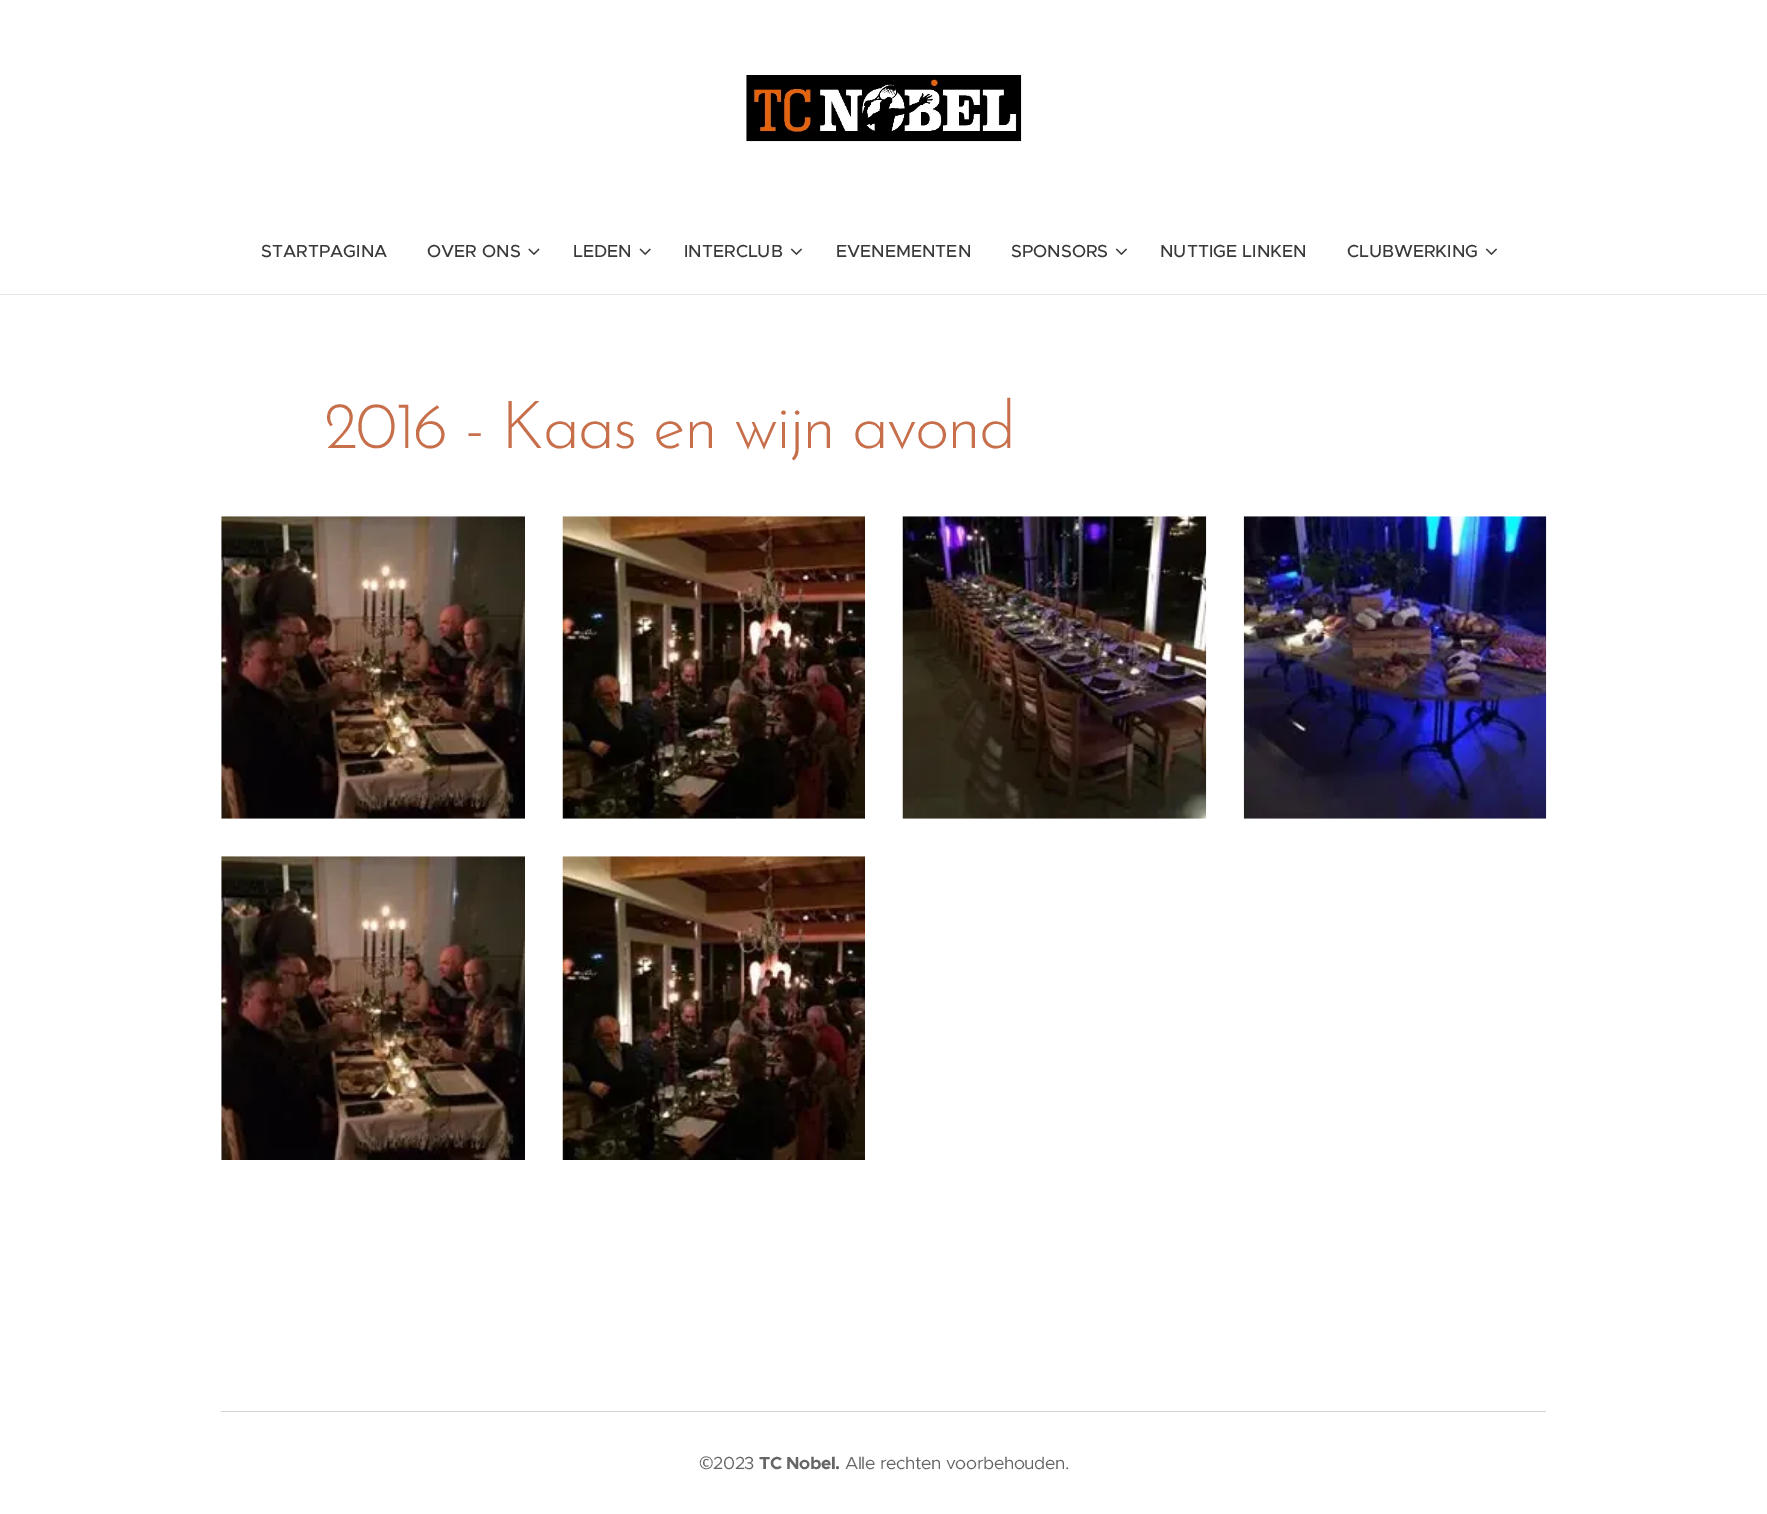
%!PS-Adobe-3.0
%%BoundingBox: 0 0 1767 1514
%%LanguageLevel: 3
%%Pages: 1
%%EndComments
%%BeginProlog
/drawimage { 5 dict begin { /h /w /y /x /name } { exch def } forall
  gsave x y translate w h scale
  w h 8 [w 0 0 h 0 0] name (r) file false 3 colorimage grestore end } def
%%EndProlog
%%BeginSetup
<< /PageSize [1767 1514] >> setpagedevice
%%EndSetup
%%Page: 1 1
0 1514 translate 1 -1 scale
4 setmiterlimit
1 setgray
0 0 1767 1514 rectfill
(images/1.raw) 746 75 276 67 drawimage
(images/2.raw) 528 248 12 7 drawimage
(images/3.raw) 639 248 12 7 drawimage
(images/4.raw) 790 248 12 7 drawimage
(images/4.raw) 1115 248 12 7 drawimage
(images/4.raw) 1485 248 12 7 drawimage
0.91 setgray
0 294 1767 1 rectfill
(images/5.raw) 221 516 304 303 drawimage
(images/6.raw) 562 516 303 303 drawimage
(images/7.raw) 902 516 305 303 drawimage
(images/8.raw) 1243 516 304 303 drawimage
(images/9.raw) 221 856 304 304 drawimage
(images/10.raw) 562 856 303 304 drawimage
0.831 setgray
221 1411 1325 1 rectfill
/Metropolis-Medium [17.5 0 0 -17.5 0 0] selectfont
0.224 setgray
261 257 moveto (STARTPAGINA) show
427 257 moveto (OVER ONS) show
573 257 moveto (LEDEN) show
684 257 moveto (INTERCLUB) show
836 257 moveto (EVENEMENTEN) show
1011 257 moveto (SPONSORS) show
1160 257 moveto (NUTTIGE LINKEN) show
1347 257 moveto (CLUBWERKING) show
/JosefinSans-Light [66.25 0 0 -66.25 0 0] selectfont
0.78 0.431 0.294 setrgbcolor
324 448 moveto -2 0 (2016 - Kaas en wijn avond) ashow
/NotoSans-Regular [17.5 0 0 -17.5 0 0] selectfont
0.4 setgray
699 1469 moveto -0.4 0 (©) ashow
/Metropolis-Regular [17.5 0 0 -17.5 0 0] selectfont
713 1469 moveto -0.4 0 (2023) ashow
/Metropolis-Bold [17.5 0 0 -17.5 0 0] selectfont
759 1469 moveto -0.4 0 (TC Nobel.) ashow
/Metropolis-Regular [17.5 0 0 -17.5 0 0] selectfont
845 1469 moveto -0.4 0 (Alle rechten voorbehouden.) ashow
showpage
%%EOF
